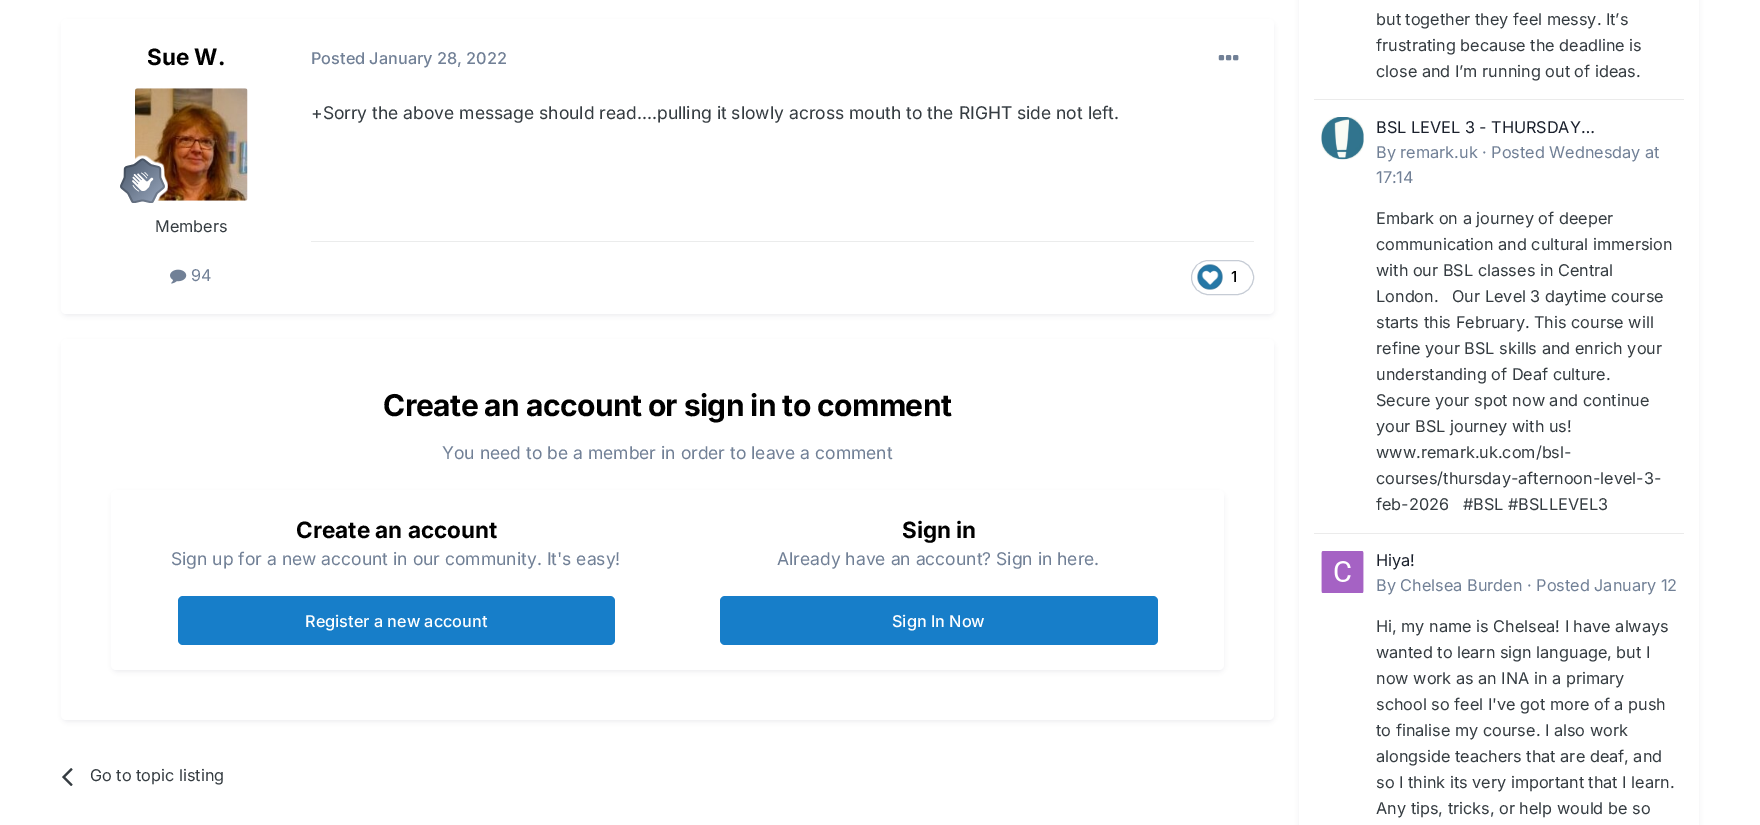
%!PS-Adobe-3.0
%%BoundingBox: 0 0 1760 825
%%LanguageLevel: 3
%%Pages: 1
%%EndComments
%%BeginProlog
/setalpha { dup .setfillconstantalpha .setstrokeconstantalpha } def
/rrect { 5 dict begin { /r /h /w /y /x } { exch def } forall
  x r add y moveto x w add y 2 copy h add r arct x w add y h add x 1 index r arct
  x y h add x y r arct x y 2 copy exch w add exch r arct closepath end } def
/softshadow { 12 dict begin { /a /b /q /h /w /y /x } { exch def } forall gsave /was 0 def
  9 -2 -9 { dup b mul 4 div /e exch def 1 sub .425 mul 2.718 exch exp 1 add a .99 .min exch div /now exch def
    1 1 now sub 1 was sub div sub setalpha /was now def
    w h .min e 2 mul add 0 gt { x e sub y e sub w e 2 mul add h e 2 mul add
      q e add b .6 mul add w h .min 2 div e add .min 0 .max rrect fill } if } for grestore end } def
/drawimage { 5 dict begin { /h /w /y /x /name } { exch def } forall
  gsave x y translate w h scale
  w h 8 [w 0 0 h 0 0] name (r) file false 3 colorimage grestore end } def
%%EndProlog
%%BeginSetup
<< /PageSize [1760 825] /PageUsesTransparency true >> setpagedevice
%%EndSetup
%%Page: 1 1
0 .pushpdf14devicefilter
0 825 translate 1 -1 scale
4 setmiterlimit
1 setgray
0 0 1760 825 rectfill
0.176 0.216 0.282 setrgbcolor
63 23 1210 292 4 2.5 0.1 softshadow
1 setgray
61 19 1213 295 5 rrect fill
(images/1.raw) 135 88 113 113 drawimage
(images/2.raw) 120 155 48 48 drawimage
(images/3.raw) 170 269 17 15 drawimage
(images/4.raw) 1218 55 21 6 drawimage
0.922 0.925 0.925 setrgbcolor
311 241 943 1 rectfill
0.776 0.8 0.835 setrgbcolor
1191.5 260.5 62 34 17 rrect stroke
(images/5.raw) 1197 264 26 26 drawimage
0.176 0.216 0.282 setrgbcolor
63 343 1210 378 4 2.5 0.1 softshadow
1 setgray
61 339 1213 381 5 rrect fill
0.176 0.216 0.282 setrgbcolor
113 494 1110 177 4 2.5 0.1 softshadow
1 setgray
111 490 1113 180 5 rrect fill
0.09 0.494 0.788 setrgbcolor
178 596 437 49 5 rrect fill
720 596 438 49 5 rrect fill
(images/6.raw) 62 768 11 18 drawimage
0.176 0.216 0.282 setrgbcolor
1300 -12 398 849 4 2.5 0.1 softshadow
1 setgray
1299 0 400 825 rectfill
0.922 setgray
1314 99 370 1 rectfill
1314 533 370 1 rectfill
(images/7.raw) 1321 117 43 43 drawimage
(images/8.raw) 1321 551 43 42 drawimage
/Inter-Bold [22.5 0 0 -22.5 0 0] selectfont
0 setgray
147 65 moveto (Sue W.) show
/Inter-Regular [16.25 0 0 -16.25 0 0] selectfont
0.208 0.235 0.255 setrgbcolor
155 232 moveto (Members) show
0.443 0.502 0.588 setrgbcolor
191 281 moveto (94) show
/Inter-Medium [16.25 0 0 -16.25 0 0] selectfont
311 64 moveto (Posted January 28, 2022) show
/Inter-Regular [17.5 0 0 -17.5 0 0] selectfont
0.208 0.235 0.255 setrgbcolor
311 119 moveto (+Sorry the above message should read....pulling it slowly across mouth to the RIGHT side not left.) show
/Inter-Medium [15 0 0 -15 0 0] selectfont
0 setgray
1231 282 moveto (1) show
/Inter-Bold [30 0 0 -30 0 0] selectfont
383 416 moveto -0.6 0 (Create an account or sign in to comment) ashow
/Inter-Regular [17.5 0 0 -17.5 0 0] selectfont
0.443 0.502 0.588 setrgbcolor
442 459 moveto (You need to be a member in order to leave a comment) show
/Inter-Bold [22.5 0 0 -22.5 0 0] selectfont
0 setgray
296 538 moveto (Create an account) show
/Inter-Regular [17.5 0 0 -17.5 0 0] selectfont
0.443 0.502 0.588 setrgbcolor
171 565 moveto (Sign up for a new account in our community. It's easy!) show
/Inter-Medium [16.25 0 0 -16.25 0 0] selectfont
1 setgray
305 627 moveto (Register a new account) show
/Inter-Bold [22.5 0 0 -22.5 0 0] selectfont
0 setgray
902 538 moveto (Sign in) show
/Inter-Regular [17.5 0 0 -17.5 0 0] selectfont
0.443 0.502 0.588 setrgbcolor
777 565 moveto (Already have an account? Sign in here.) show
/Inter-Medium [16.25 0 0 -16.25 0 0] selectfont
1 setgray
892 627 moveto (Sign In Now) show
/Inter-Regular [16.25 0 0 -16.25 0 0] selectfont
0.208 0.235 0.255 setrgbcolor
90 781 moveto (Go to topic listing) show
1376 25 moveto (but together they feel messy. It’s) show
1376 51 moveto (frustrating because the deadline is) show
1376 77 moveto (close and I’m running out of ideas.) show
0.102 0.125 0.173 setrgbcolor
1376 133 moveto (BSL LEVEL 3 - THURSDAY…) show
0.443 0.502 0.588 setrgbcolor
1376 158 moveto (By remark.uk · Posted Wednesday at) show
1376 183 moveto (17:14) show
0.208 0.235 0.255 setrgbcolor
1376 224 moveto (Embark on a journey of deeper) show
1376 250 moveto (communication and cultural immersion) show
1376 276 moveto (with our BSL classes in Central) show
1376 302 moveto (London.) show
1452 302 moveto (Our Level 3 daytime course) show
1376 328 moveto (starts this February. This course will) show
1376 354 moveto (refine your BSL skills and enrich your) show
1376 380 moveto (understanding of Deaf culture.) show
1376 406 moveto (Secure your spot now and continue) show
1376 432 moveto (your BSL journey with us!) show
1376 458 moveto (www.remark.uk.com/bsl-) show
1376 484 moveto (courses/thursday-afternoon-level-3-) show
1376 510 moveto (feb-2026) show
1463 510 moveto (#BSL #BSLLEVEL3) show
0.102 0.125 0.173 setrgbcolor
1376 566 moveto (Hiya!) show
0.443 0.502 0.588 setrgbcolor
1376 591 moveto (By Chelsea Burden · Posted January 12) show
0.208 0.235 0.255 setrgbcolor
1376 632 moveto (Hi, my name is Chelsea! I have always) show
1376 658 moveto (wanted to learn sign language, but I) show
1376 684 moveto (now work as an INA in a primary) show
1376 710 moveto (school so feel I've got more of a push) show
1376 736 moveto (to finalise my course. I also work) show
1376 762 moveto (alongside teachers that are deaf, and) show
1376 788 moveto (so I think its very important that I learn.) show
1376 814 moveto (Any tips, tricks, or help would be so) show
.poppdf14devicefilter showpage
%%EOF
